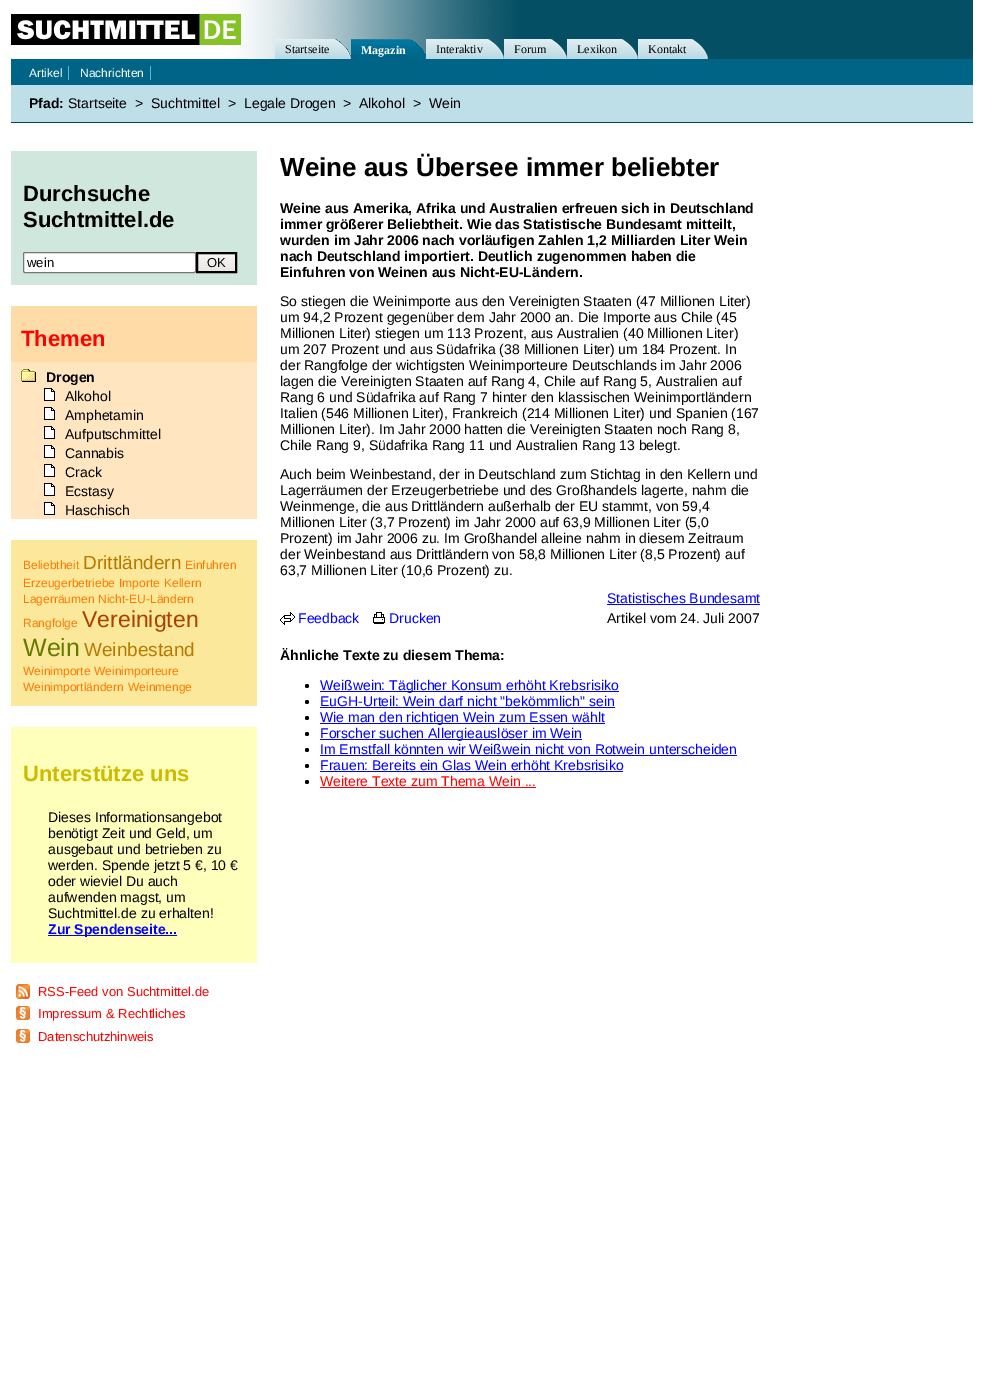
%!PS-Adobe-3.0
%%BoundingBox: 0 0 984 1391
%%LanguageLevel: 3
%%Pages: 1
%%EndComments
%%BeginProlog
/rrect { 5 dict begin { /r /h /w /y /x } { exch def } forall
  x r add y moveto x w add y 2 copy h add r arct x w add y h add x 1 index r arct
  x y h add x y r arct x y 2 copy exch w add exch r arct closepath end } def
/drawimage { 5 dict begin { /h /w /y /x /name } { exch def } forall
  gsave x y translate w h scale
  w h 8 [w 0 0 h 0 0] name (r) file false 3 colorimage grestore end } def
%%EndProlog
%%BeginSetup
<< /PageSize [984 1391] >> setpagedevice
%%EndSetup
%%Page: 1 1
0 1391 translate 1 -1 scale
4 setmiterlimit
1 setgray
0 0 984 1391 rectfill
0.016 0.31 0.392 setrgbcolor
516 0 457 59 rectfill
(images/1.raw) 11 0 505 59 drawimage
(images/2.raw) 11 14 230 31 drawimage
(images/3.raw) 275 39 60 20 drawimage
(images/4.raw) 335 39 16 20 drawimage
0 0.392 0.525 setrgbcolor
351 55 59 4 rectfill
(images/5.raw) 351 39 59 16 drawimage
(images/6.raw) 410 39 16 20 drawimage
(images/7.raw) 426 39 62 20 drawimage
(images/8.raw) 488 39 16 20 drawimage
(images/9.raw) 504 39 47 20 drawimage
(images/10.raw) 551 39 16 20 drawimage
(images/11.raw) 567 39 55 20 drawimage
(images/10.raw) 622 39 16 20 drawimage
(images/12.raw) 638 39 54 20 drawimage
(images/10.raw) 692 39 16 20 drawimage
11 59 962 26 rectfill
0.345 0.722 0.843 setrgbcolor
68 66 1 14 rectfill
150 66 1 14 rectfill
0.749 0.875 0.91 setrgbcolor
11 85 962 37 rectfill
0 0.275 0.357 setrgbcolor
11 122 962 1 rectfill
0.816 0.906 0.871 setrgbcolor
11 151 246 134 rectfill
1 setgray
23.5 252.5 172 20 1.5 rrect gsave fill grestore
0.463 setgray
stroke
(images/13.raw) 198 254 37 17 drawimage
0 setgray
2 setlinewidth
197 253 39 19 rectstroke
1 0.859 0.659 setrgbcolor
11 306 246 56 rectfill
1 0.898 0.753 setrgbcolor
11 362 246 157 rectfill
(images/14.raw) 21 369 15 13 drawimage
(images/15.raw) 44 388 11 13 drawimage
(images/15.raw) 44 407 11 13 drawimage
(images/15.raw) 44 426 11 13 drawimage
(images/15.raw) 44 445 11 13 drawimage
(images/15.raw) 44 464 11 13 drawimage
(images/15.raw) 44 483 11 13 drawimage
(images/15.raw) 44 502 11 13 drawimage
0.984 0.91 0.604 setrgbcolor
11 540 246 166 rectfill
0.996 1 0.729 setrgbcolor
11 727 246 236 rectfill
0 0 1 setrgbcolor
48 935 129 1 rectfill
(images/16.raw) 16 984 14 15 drawimage
(images/17.raw) 16 1006 14 14 drawimage
(images/17.raw) 16 1029 14 14 drawimage
(images/18.raw) 280 612 15 13 drawimage
(images/19.raw) 373 612 12 12 drawimage
607 604 153 1 rectfill
0 setgray
newpath 307 686 2 0 360 arc closepath fill
0 0 1 setrgbcolor
320 691 299 1 rectfill
0 setgray
newpath 307 702 2 0 360 arc closepath fill
0 0 1 setrgbcolor
320 707 295 1 rectfill
0 setgray
newpath 307 718 2 0 360 arc closepath fill
0 0 1 setrgbcolor
320 723 285 1 rectfill
0 setgray
newpath 307 734 2 0 360 arc closepath fill
0 0 1 setrgbcolor
320 739 262 1 rectfill
0 setgray
newpath 307 750 2 0 360 arc closepath fill
0 0 1 setrgbcolor
320 755 417 1 rectfill
0 setgray
newpath 307 766 2 0 360 arc closepath fill
0 0 1 setrgbcolor
320 771 303 1 rectfill
0 setgray
newpath 307 782 2 0 360 arc closepath fill
1 0 0 setrgbcolor
320 787 216 1 rectfill
/LiberationSerif-Regular [12 0 0 -12 0 0] selectfont
0 setgray
285 53 moveto (Startseite) show
/LiberationSerif-Bold [12 0 0 -12 0 0] selectfont
1 setgray
361 54 moveto (Magazin) show
/LiberationSerif-Regular [12 0 0 -12 0 0] selectfont
0 setgray
436 53 moveto (Interaktiv) show
514 53 moveto (Forum) show
577 53 moveto (Lexikon) show
648 53 moveto (Kontakt) show
/LiberationSans-Regular [12 0 0 -12 0 0] selectfont
1 setgray
29 77 moveto (Artikel) show
80 77 moveto (Nachrichten) show
/LiberationSans-Bold [14 0 0 -14 0 0] selectfont
0 setgray
29 108 moveto (Pfad:) show
/LiberationSans-Regular [14 0 0 -14 0 0] selectfont
68 108 moveto (Startseite) show
135 108 moveto (>) show
151 108 moveto (Suchtmittel) show
228 108 moveto (>) show
244 108 moveto (Legale Drogen) show
343 108 moveto (>) show
359 108 moveto (Alkohol) show
413 108 moveto (>) show
429 108 moveto (Wein) show
/LiberationSans-Bold [22 0 0 -22 0 0] selectfont
23 201 moveto (Durchsuche) show
23 227 moveto (Suchtmittel.de) show
/LiberationSans-Regular [13 0 0 -13 0 0] selectfont
27 267 moveto (wein) show
207 267 moveto (OK) show
/LiberationSans-Bold [22 0 0 -22 0 0] selectfont
1 0 0 setrgbcolor
21 346 moveto (Themen) show
/LiberationSans-Bold [14 0 0 -14 0 0] selectfont
0 setgray
46 382 moveto (Drogen) show
/LiberationSans-Regular [14 0 0 -14 0 0] selectfont
65 401 moveto (Alkohol) show
65 420 moveto (Amphetamin) show
65 439 moveto (Aufputschmittel) show
65 458 moveto (Cannabis) show
65 477 moveto (Crack) show
65 496 moveto (Ecstasy) show
65 515 moveto (Haschisch) show
/LiberationSans-Regular [12 0 0 -12 0 0] selectfont
1 0.475 0 setrgbcolor
23 569 moveto (Beliebtheit) show
/LiberationSans-Regular [19 0 0 -19 0 0] selectfont
0.718 0.475 0 setrgbcolor
83 569 moveto (Drittländern) show
/LiberationSans-Regular [12 0 0 -12 0 0] selectfont
1 0.475 0 setrgbcolor
185 569 moveto (Einfuhren) show
23 587 moveto (Erzeugerbetriebe) show
119 587 moveto (Importe) show
164 587 moveto (Kellern) show
23 603 moveto (Lagerräumen) show
98 603 moveto (Nicht-EU-Ländern) show
23 627 moveto (Rangfolge) show
/LiberationSans-Regular [23 0 0 -23 0 0] selectfont
0.671 0.251 0 setrgbcolor
82 627 moveto (Vereinigten) show
/LiberationSans-Regular [25 0 0 -25 0 0] selectfont
0.392 0.475 0 setrgbcolor
23 656 moveto (Wein) show
/LiberationSans-Regular [19 0 0 -19 0 0] selectfont
0.718 0.475 0 setrgbcolor
84 656 moveto (Weinbestand) show
/LiberationSans-Regular [12 0 0 -12 0 0] selectfont
1 0.475 0 setrgbcolor
23 675 moveto (Weinimporte) show
94 675 moveto (Weinimporteure) show
23 691 moveto (Weinimportländern) show
128 691 moveto (Weinmenge) show
/LiberationSans-Bold [22 0 0 -22 0 0] selectfont
0.8 0.733 0 setrgbcolor
23 781 moveto (Unterstütze uns) show
/LiberationSans-Regular [14 0 0 -14 0 0] selectfont
0 setgray
48 822 moveto (Dieses Informationsangebot) show
48 838 moveto (benötigt Zeit und Geld, um) show
48 854 moveto (ausgebaut und betrieben zu) show
48 870 moveto (werden. Spende jetzt 5 €, 10 €) show
48 886 moveto (oder wieviel Du auch) show
48 902 moveto (aufwenden magst, um) show
48 918 moveto (Suchtmittel.de zu erhalten!) show
/LiberationSans-Bold [14 0 0 -14 0 0] selectfont
0 0 1 setrgbcolor
48 934 moveto (Zur Spendenseite...) show
/LiberationSans-Regular [13 0 0 -13 0 0] selectfont
1 0 0 setrgbcolor
38 996 moveto (RSS-Feed von Suchtmittel.de) show
38 1018 moveto (Impressum & Rechtliches) show
38 1041 moveto (Datenschutzhinweis) show
/LiberationSans-Bold [26 0 0 -26 0 0] selectfont
0 setgray
280 176 moveto (Weine aus Übersee immer beliebter) show
/LiberationSans-Bold [14 0 0 -14 0 0] selectfont
280 213 moveto (Weine aus Amerika, Afrika und Australien erfreuen sich in Deutschland) show
280 229 moveto (immer größerer Beliebtheit. Wie das Statistische Bundesamt mitteilt,) show
280 245 moveto (wurden im Jahr 2006 nach vorläufigen Zahlen 1,2 Milliarden Liter Wein) show
280 261 moveto (nach Deutschland importiert. Deutlich zugenommen haben die) show
280 277 moveto (Einfuhren von Weinen aus Nicht-EU-Ländern.) show
/LiberationSans-Regular [14 0 0 -14 0 0] selectfont
280 306 moveto (So stiegen die Weinimporte aus den Vereinigten Staaten \(47 Millionen Liter\)) show
280 322 moveto (um 94,2 Prozent gegenüber dem Jahr 2000 an. Die Importe aus Chile \(45) show
280 338 moveto (Millionen Liter\) stiegen um 113 Prozent, aus Australien \(40 Millionen Liter\)) show
280 354 moveto (um 207 Prozent und aus Südafrika \(38 Millionen Liter\) um 184 Prozent. In) show
280 370 moveto (der Rangfolge der wichtigsten Weinimporteure Deutschlands im Jahr 2006) show
280 386 moveto (lagen die Vereinigten Staaten auf Rang 4, Chile auf Rang 5, Australien auf) show
280 402 moveto (Rang 6 und Südafrika auf Rang 7 hinter den klassischen Weinimportländern) show
280 418 moveto (Italien \(546 Millionen Liter\), Frankreich \(214 Millionen Liter\) und Spanien \(167) show
280 434 moveto (Millionen Liter\). Im Jahr 2000 hatten die Vereinigten Staaten noch Rang 8,) show
280 450 moveto (Chile Rang 9, Südafrika Rang 11 und Australien Rang 13 belegt.) show
280 479 moveto (Auch beim Weinbestand, der in Deutschland zum Stichtag in den Kellern und) show
280 495 moveto (Lagerräumen der Erzeugerbetriebe und des Großhandels lagerte, nahm die) show
280 511 moveto (Weinmenge, die aus Drittländern außerhalb der EU stammt, von 59,4) show
280 527 moveto (Millionen Liter \(3,7 Prozent\) im Jahr 2000 auf 63,9 Millionen Liter \(5,0) show
280 543 moveto (Prozent\) im Jahr 2006 zu. Im Großhandel alleine nahm in diesem Zeitraum) show
280 559 moveto (der Weinbestand aus Drittländern von 58,8 Millionen Liter \(8,5 Prozent\) auf) show
280 575 moveto (63,7 Millionen Liter \(10,6 Prozent\) zu.) show
0 0 1 setrgbcolor
298 623 moveto (Feedback) show
389 623 moveto (Drucken) show
607 603 moveto (Statistisches Bundesamt) show
0 setgray
607 623 moveto (Artikel vom 24. Juli 2007) show
/LiberationSans-Bold [14 0 0 -14 0 0] selectfont
280 660 moveto (Ähnliche Texte zu diesem Thema:) show
/LiberationSans-Regular [14 0 0 -14 0 0] selectfont
0 0 1 setrgbcolor
320 690 moveto (Weißwein: Täglicher Konsum erhöht Krebsrisiko) show
320 706 moveto (EuGH-Urteil: Wein darf nicht "bekömmlich" sein) show
320 722 moveto (Wie man den richtigen Wein zum Essen wählt) show
320 738 moveto (Forscher suchen Allergieauslöser im Wein) show
320 754 moveto (Im Ernstfall könnten wir Weißwein nicht von Rotwein unterscheiden) show
320 770 moveto (Frauen: Bereits ein Glas Wein erhöht Krebsrisiko) show
1 0 0 setrgbcolor
320 786 moveto (Weitere Texte zum Thema Wein ...) show
showpage
%%EOF
